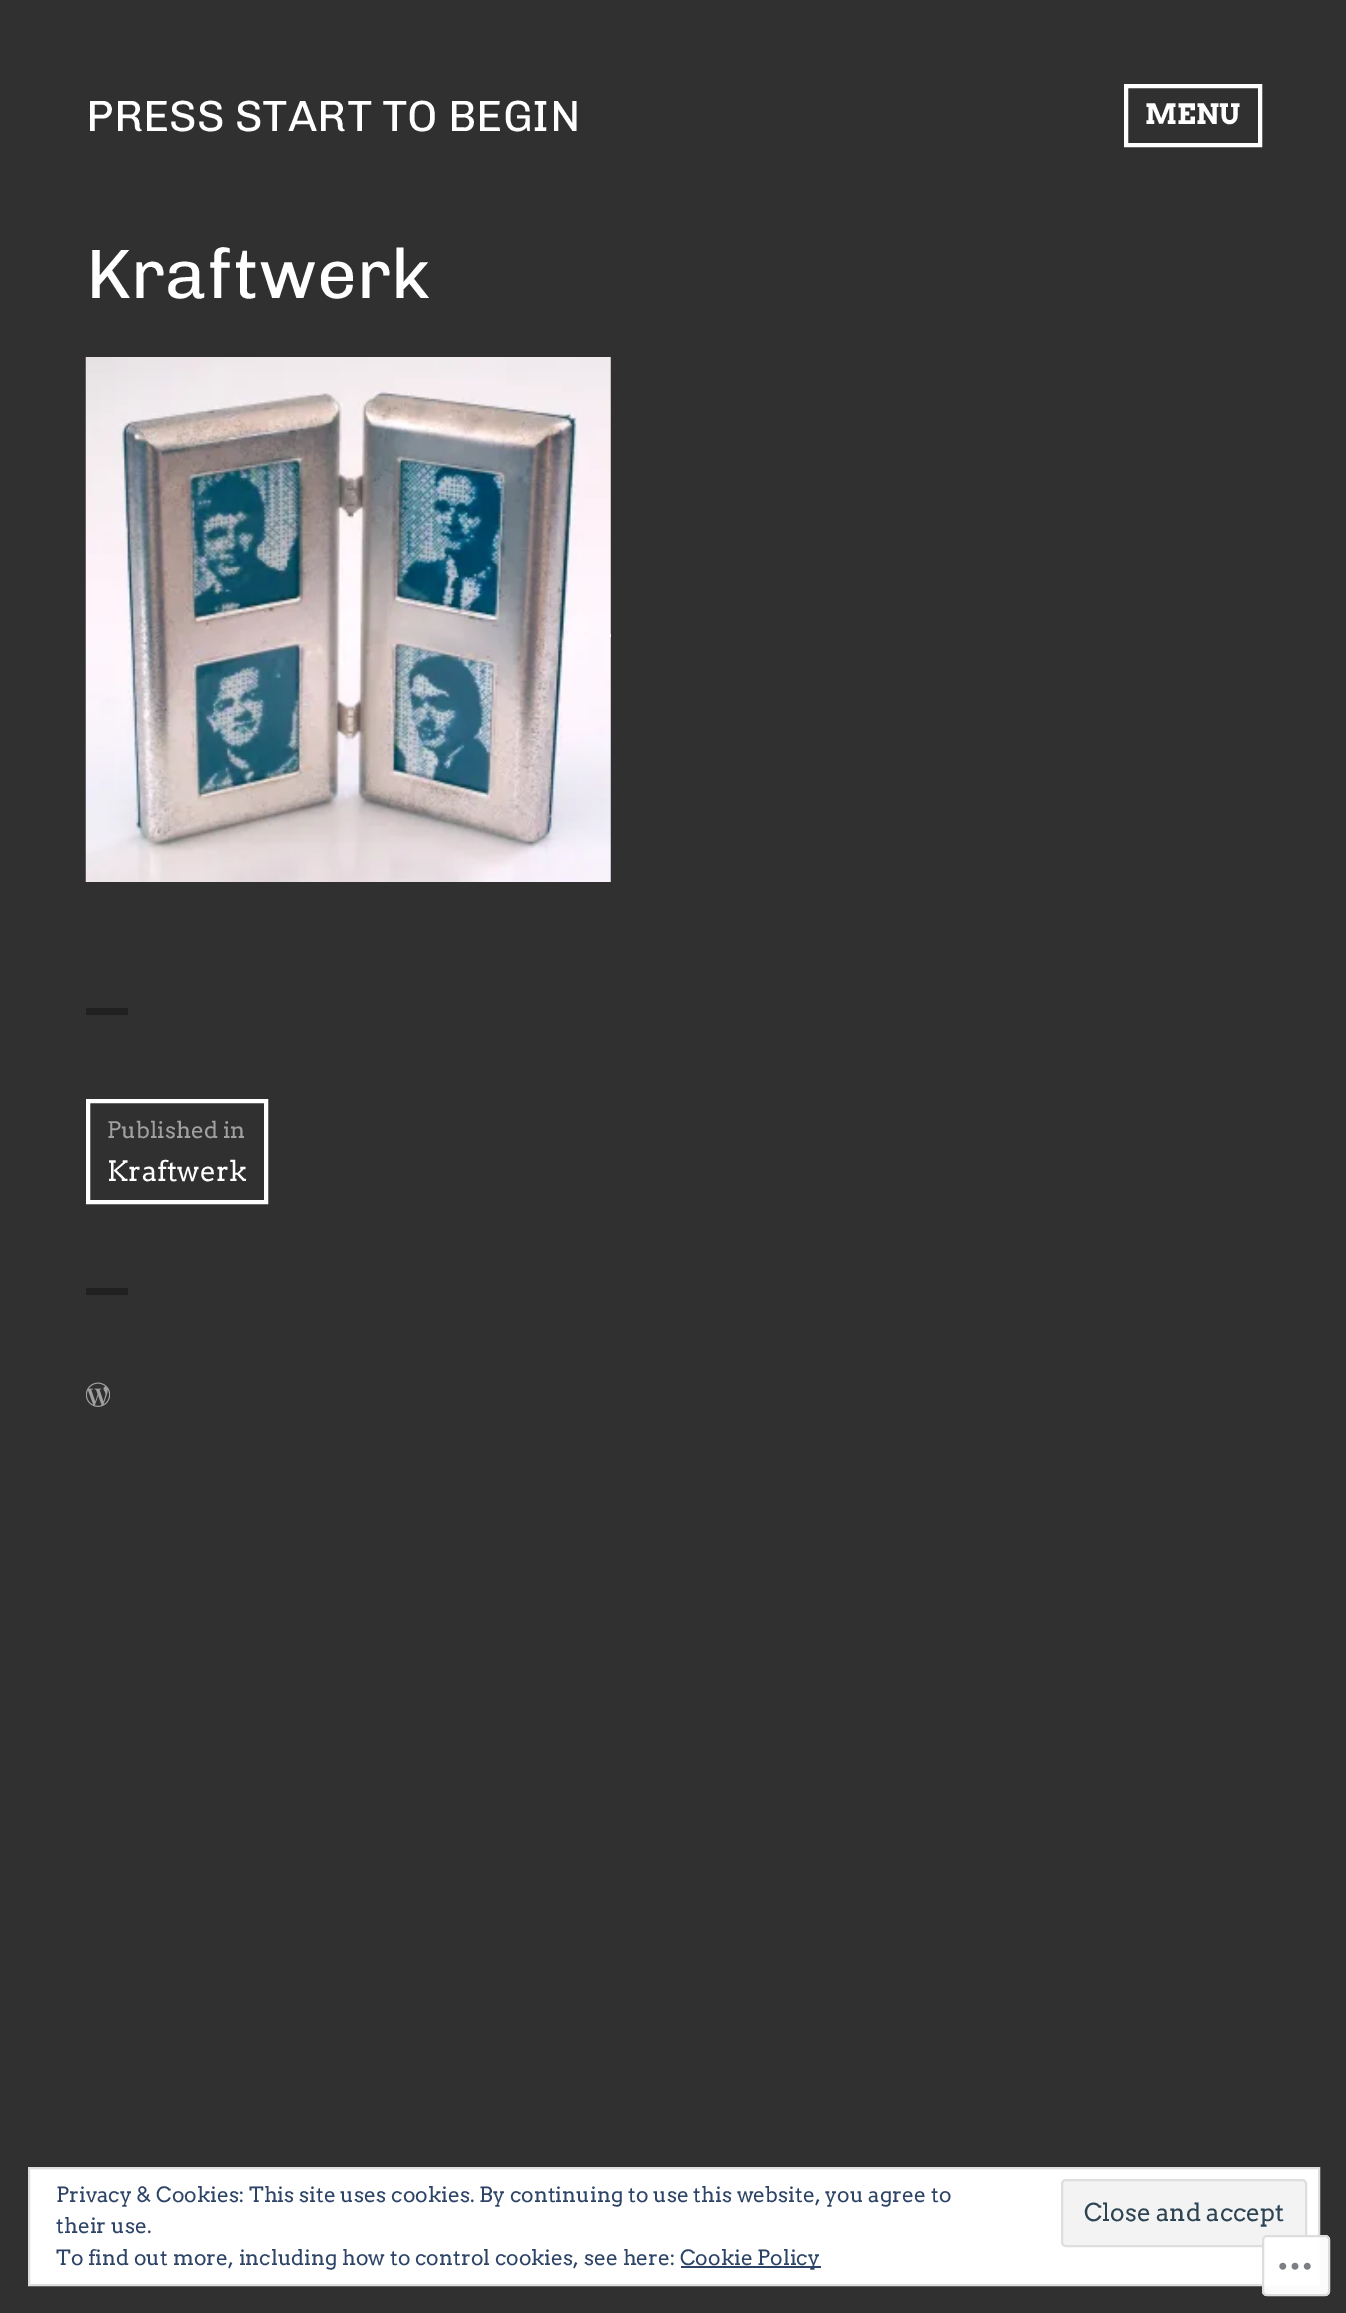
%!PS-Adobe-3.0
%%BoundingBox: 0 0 1346 2313
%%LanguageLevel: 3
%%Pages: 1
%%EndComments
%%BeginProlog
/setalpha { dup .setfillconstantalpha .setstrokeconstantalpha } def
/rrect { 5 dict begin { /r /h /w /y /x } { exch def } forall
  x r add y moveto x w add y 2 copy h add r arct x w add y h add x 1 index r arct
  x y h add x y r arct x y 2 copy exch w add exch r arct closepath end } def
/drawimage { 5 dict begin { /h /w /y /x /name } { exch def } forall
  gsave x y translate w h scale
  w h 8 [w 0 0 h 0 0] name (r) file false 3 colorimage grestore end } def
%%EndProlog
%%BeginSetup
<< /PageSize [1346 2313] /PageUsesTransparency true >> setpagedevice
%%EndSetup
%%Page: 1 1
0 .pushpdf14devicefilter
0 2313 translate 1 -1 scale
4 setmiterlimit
0.188 setgray
0 0 1346 2313 rectfill
1 setgray
4 setlinewidth
1126 86 134 59 rectstroke
(images/1.raw) 85 357 526 525 drawimage
0.125 setgray
86 1008 42 7 rectfill
1 setgray
88 1101 178 101 rectstroke
0.125 setgray
86 1288 42 7 rectfill
(images/2.raw) 86 1382 24 25 drawimage
1 setgray
newpath 29 2168 moveto 1319 2168 lineto 1319 2285 lineto 29 2285 lineto closepath gsave fill grestore
0.871 setgray
2 setlinewidth
stroke
0.953 setgray
1062 2180 244 66 4 rrect gsave fill grestore
0.871 setgray
stroke
0.18 0.267 0.404 setrgbcolor
681 2266 140 2 rectfill
0.98 setalpha
1 setgray
1262 2235 68 61 5 rrect fill
0.863 0.863 0.871 setrgbcolor
1263 2236 66 59 4 rrect stroke
1 setalpha
(images/3.raw) 1279 2262 32 8 drawimage
/Chivo-Medium [43.75 0 0 -43.75 0 0] selectfont
1 setgray
86 131 moveto (PRESS START TO BEGIN) show
/Arvo-Bold [28 0 0 -28 0 0] selectfont
1145 124 moveto (MENU) show
/Chivo-Medium [70 0 0 -70 0 0] selectfont
86 298 moveto (Kraftwerk) show
/Arvo-Regular [22.75 0 0 -22.75 0 0] selectfont
0.627 setgray
107 1138 moveto (Published in) show
/Arvo-Regular [28 0 0 -28 0 0] selectfont
1 setgray
107 1181 moveto (Kraftwerk) show
/Arvo-Regular [21 0 0 -21 0 0] selectfont
0.18 0.267 0.404 setrgbcolor
56 2202 moveto (Privacy & Cookies: This site uses cookies. By continuing to use this website, you agree to) show
56 2233 moveto (their use.) show
/Arvo-Regular [24.5 0 0 -24.5 0 0] selectfont
0.18 0.267 0.325 setrgbcolor
1084 2221 moveto (Close and accept) show
/Arvo-Regular [21 0 0 -21 0 0] selectfont
0.18 0.267 0.404 setrgbcolor
56 2265 moveto (To find out more, including how to control cookies, see here:) show
680 2265 moveto (Cookie Policy) show
.poppdf14devicefilter showpage
%%EOF
